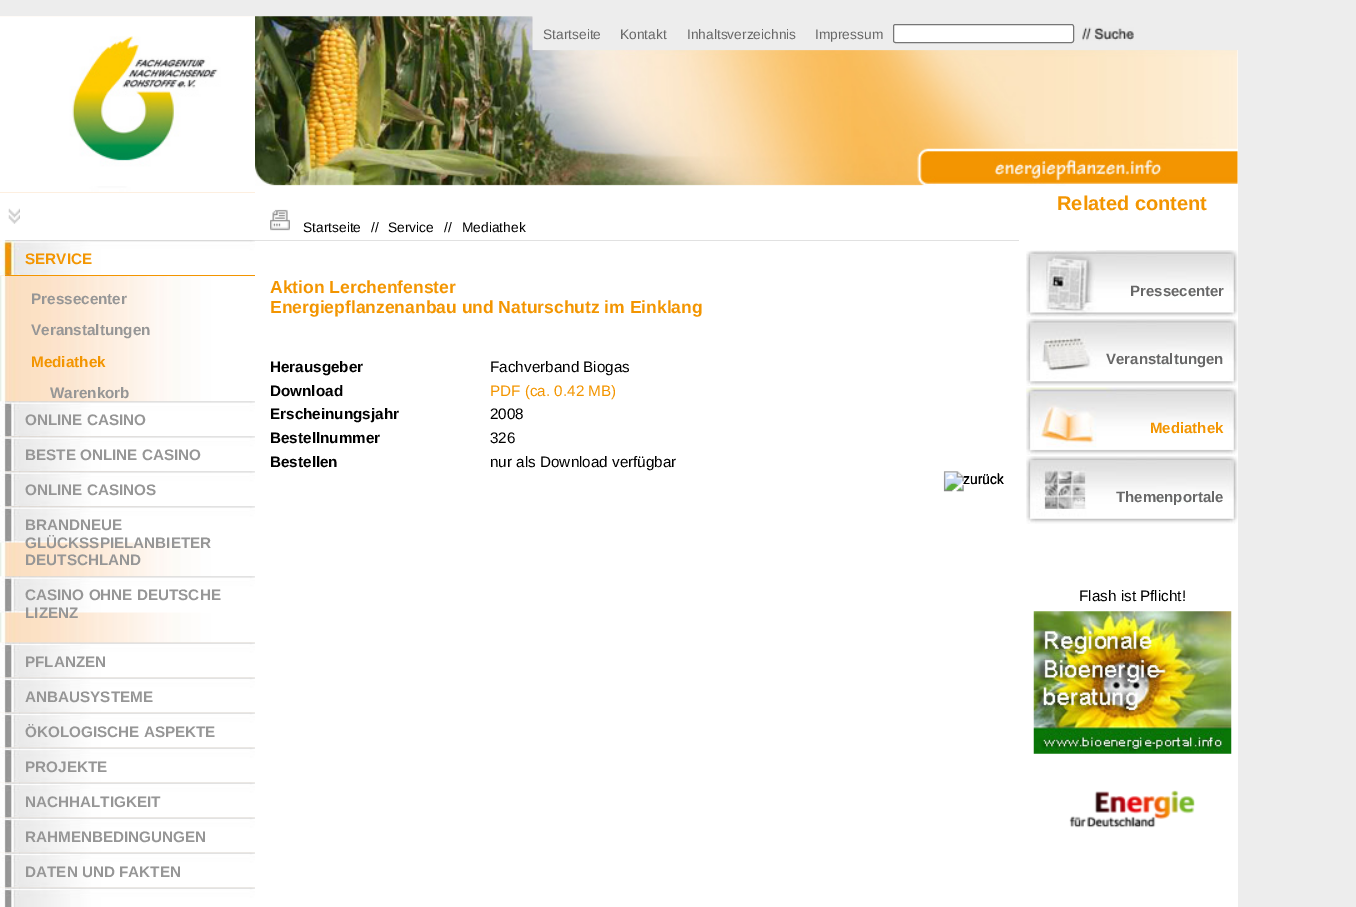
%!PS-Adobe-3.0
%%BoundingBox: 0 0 1356 907
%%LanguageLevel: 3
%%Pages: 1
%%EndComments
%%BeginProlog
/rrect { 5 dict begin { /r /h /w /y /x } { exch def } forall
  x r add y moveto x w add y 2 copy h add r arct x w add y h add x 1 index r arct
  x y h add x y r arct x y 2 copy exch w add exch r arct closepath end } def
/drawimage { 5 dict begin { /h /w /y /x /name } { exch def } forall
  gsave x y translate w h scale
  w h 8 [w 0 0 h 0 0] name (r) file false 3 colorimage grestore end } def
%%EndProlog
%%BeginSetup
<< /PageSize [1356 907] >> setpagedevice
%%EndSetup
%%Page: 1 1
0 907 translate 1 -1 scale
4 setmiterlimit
0.929 setgray
0 0 1356 907 rectfill
1 setgray
0 16 1238 891 rectfill
(images/1.raw) 0 16 255 176 drawimage
(images/2.raw) 255 16 983 170 drawimage
0.929 setgray
533 16 705 34 rectfill
1 setgray
893.5 24.5 180 18 2 rrect gsave fill grestore
0.463 setgray
stroke
(images/3.raw) 1082 27 52 14 drawimage
0.992 0.937 0.878 setrgbcolor
0 192 255 696 rectfill
1 setgray
0 193 255 47 rectfill
(images/4.raw) 8 208 12 16 drawimage
(images/5.raw) 270 209 20 22 drawimage
(images/6.raw) 0 240 255 35 drawimage
0.953 0.584 0 setrgbcolor
5 275 250 1 rectfill
(images/7.raw) 0 276 255 367 drawimage
(images/8.raw) 0 276 255 1 drawimage
(images/9.raw) 0 401 255 36 drawimage
(images/10.raw) 0 436 255 36 drawimage
(images/10.raw) 0 471 255 36 drawimage
(images/11.raw) 0 506 255 37 drawimage
(images/12.raw) 0 576 255 37 drawimage
(images/13.raw) 0 642 255 36 drawimage
(images/14.raw) 0 677 255 36 drawimage
(images/14.raw) 0 712 255 36 drawimage
(images/14.raw) 0 747 255 36 drawimage
(images/14.raw) 0 782 255 36 drawimage
(images/14.raw) 0 817 255 36 drawimage
(images/14.raw) 0 852 255 36 drawimage
(images/15.raw) 0 887 255 20 drawimage
0.882 setgray
255 240 764 1 rectfill
(images/16.raw) 943 471 61 21 drawimage
(images/17.raw) 1026 250 212 68 drawimage
(images/18.raw) 1026 318 212 68 drawimage
(images/19.raw) 1026 387 212 68 drawimage
(images/20.raw) 1026 456 212 68 drawimage
(images/21.raw) 1033 611 199 143 drawimage
(images/22.raw) 1069 790 126 38 drawimage
/LiberationSans-Regular [13.75 0 0 -13.75 0 0] selectfont
0.404 setgray
543 39 moveto (Startseite) show
620 39 moveto (Kontakt) show
687 39 moveto (Inhaltsverzeichnis) show
815 39 moveto (Impressum) show
/LiberationSans-Bold [20 0 0 -20 0 0] selectfont
0.953 0.584 0 setrgbcolor
1057 210 moveto (Related content) show
/LiberationSans-Regular [13.75 0 0 -13.75 0 0] selectfont
0 setgray
303 232 moveto (Startseite) show
371 232 moveto (//) show
388 232 moveto (Service) show
444 232 moveto (//) show
462 232 moveto (Mediathek) show
/LiberationSans-Bold [15.25 0 0 -15.25 0 0] selectfont
0.953 0.584 0 setrgbcolor
25 264 moveto (SERVICE) show
0.588 setgray
31 304 moveto (Pressecenter) show
31 335 moveto (Veranstaltungen) show
0.953 0.584 0 setrgbcolor
31 367 moveto (Mediathek) show
0.588 setgray
50 398 moveto (Warenkorb) show
25 425 moveto (ONLINE CASINO) show
25 460 moveto (BESTE ONLINE CASINO) show
25 495 moveto (ONLINE CASINOS) show
25 530 moveto (BRANDNEUE) show
25 548 moveto (GLÜCKSSPIELANBIETER) show
25 565 moveto (DEUTSCHLAND) show
25 600 moveto (CASINO OHNE DEUTSCHE) show
25 618 moveto (LIZENZ) show
25 667 moveto (PFLANZEN) show
25 702 moveto (ANBAUSYSTEME) show
25 737 moveto (ÖKOLOGISCHE ASPEKTE) show
25 772 moveto (PROJEKTE) show
25 807 moveto (NACHHALTIGKEIT) show
25 842 moveto (RAHMENBEDINGUNGEN) show
25 877 moveto (DATEN UND FAKTEN) show
/LiberationSans-Bold [17.5 0 0 -17.5 0 0] selectfont
0.953 0.584 0 setrgbcolor
270 293 moveto (Aktion Lerchenfenster) show
270 313 moveto (Energiepflanzenanbau und Naturschutz im Einklang) show
/LiberationSans-Bold [15.25 0 0 -15.25 0 0] selectfont
0 setgray
270 372 moveto (Herausgeber) show
/LiberationSans-Regular [15.25 0 0 -15.25 0 0] selectfont
490 372 moveto (Fachverband Biogas) show
/LiberationSans-Bold [15.25 0 0 -15.25 0 0] selectfont
270 396 moveto (Download) show
/LiberationSans-Regular [15.25 0 0 -15.25 0 0] selectfont
0.953 0.584 0 setrgbcolor
490 396 moveto (PDF \(ca. 0.42 MB\)) show
/LiberationSans-Bold [15.25 0 0 -15.25 0 0] selectfont
0 setgray
270 419 moveto (Erscheinungsjahr) show
/LiberationSans-Regular [15.25 0 0 -15.25 0 0] selectfont
490 419 moveto (2008) show
/LiberationSans-Bold [15.25 0 0 -15.25 0 0] selectfont
270 443 moveto (Bestellnummer) show
/LiberationSans-Regular [15.25 0 0 -15.25 0 0] selectfont
490 443 moveto (326) show
/LiberationSans-Bold [15.25 0 0 -15.25 0 0] selectfont
270 467 moveto (Bestellen) show
/LiberationSans-Regular [15.25 0 0 -15.25 0 0] selectfont
490 467 moveto (nur als Download verfügbar) show
/LiberationSans-Regular [13.75 0 0 -13.75 0 0] selectfont
963 484 moveto (zurück) show
/LiberationSans-Bold [15 0 0 -15 0 0] selectfont
0.404 setgray
1130 296 moveto (Pressecenter) show
1106 364 moveto (Veranstaltungen) show
0.953 0.584 0 setrgbcolor
1150 433 moveto (Mediathek) show
0.404 setgray
1116 502 moveto (Themenportale) show
/LiberationSans-Regular [15.25 0 0 -15.25 0 0] selectfont
0 setgray
1079 601 moveto (Flash ist Pflicht!) show
showpage
%%EOF
